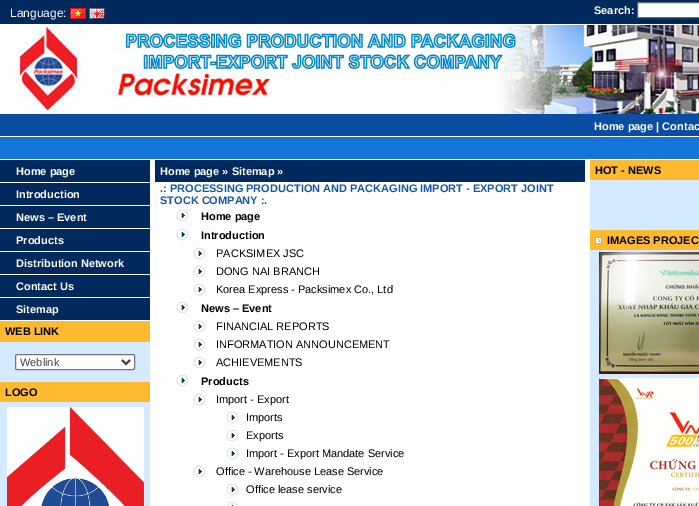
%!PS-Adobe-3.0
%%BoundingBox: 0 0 699 506
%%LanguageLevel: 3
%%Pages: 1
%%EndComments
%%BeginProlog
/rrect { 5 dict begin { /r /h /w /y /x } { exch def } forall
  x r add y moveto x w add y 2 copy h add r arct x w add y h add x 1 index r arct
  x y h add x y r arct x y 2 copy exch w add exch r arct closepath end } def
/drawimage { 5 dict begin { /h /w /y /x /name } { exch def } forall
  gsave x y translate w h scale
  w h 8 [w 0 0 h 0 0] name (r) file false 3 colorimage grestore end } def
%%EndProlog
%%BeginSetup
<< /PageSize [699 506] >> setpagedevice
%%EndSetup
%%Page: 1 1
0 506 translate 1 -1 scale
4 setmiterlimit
1 setgray
0 0 699 506 rectfill
0 0.161 0.365 setrgbcolor
0 0 699 24 rectfill
(images/1.raw) 70 8 16 11 drawimage
(images/2.raw) 89 8 16 11 drawimage
1 setgray
newpath 637.5 2.5 moveto 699.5 2.5 lineto 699.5 17.5 lineto 637.5 17.5 lineto closepath gsave fill grestore
0.4 setgray
stroke
(images/3.raw) 16 25 683 89 drawimage
0.043 0.302 0.639 setrgbcolor
0 114 699 22 rectfill
0.078 0.463 0.851 setrgbcolor
0 137 699 22 rectfill
0.831 0.918 1 setrgbcolor
0 342 150 164 rectfill
0 0.161 0.369 setrgbcolor
0 160 150 22 rectfill
0 183 150 22 rectfill
0 206 150 22 rectfill
0 229 150 22 rectfill
0 252 150 22 rectfill
0 275 150 22 rectfill
0 298 150 22 rectfill
1 0.729 0.188 setrgbcolor
0 321 150 21 rectfill
1 setgray
15.5 354.5 119 15 1.5 rrect gsave fill grestore
0.463 setgray
stroke
0.267 setgray
2 setlinewidth
newpath 122 360 moveto 126 364 lineto 130 360 lineto stroke
1 0.729 0.188 setrgbcolor
0 382 150 20 rectfill
(images/4.raw) 7 407 137 99 drawimage
0 0.161 0.369 setrgbcolor
155 160 430 22 rectfill
(images/5.raw) 176 209 13 13 drawimage
(images/5.raw) 176 228 13 13 drawimage
(images/5.raw) 193 247 13 13 drawimage
(images/5.raw) 193 265 13 13 drawimage
(images/5.raw) 193 283 13 13 drawimage
(images/5.raw) 176 301 13 13 drawimage
(images/5.raw) 193 320 13 13 drawimage
(images/5.raw) 193 338 13 13 drawimage
(images/5.raw) 193 356 13 13 drawimage
(images/5.raw) 176 374 13 13 drawimage
(images/5.raw) 193 393 13 13 drawimage
(images/5.raw) 226 411 13 13 drawimage
(images/5.raw) 226 429 13 13 drawimage
(images/5.raw) 226 447 13 13 drawimage
(images/5.raw) 193 465 13 13 drawimage
(images/5.raw) 226 483 13 13 drawimage
(images/6.raw) 227 501 11 5 drawimage
0.831 0.918 1 setrgbcolor
590 180 109 326 rectfill
1 0.729 0.188 setrgbcolor
590 160 109 20 rectfill
590 230 109 20 rectfill
(images/7.raw) 595 237 7 7 drawimage
(images/8.raw) 599 252 100 122 drawimage
(images/9.raw) 599 378 100 128 drawimage
/LiberationSans-Regular [12 0 0 -12 0 0] selectfont
1 setgray
10 17 moveto (Language:) show
/LiberationSans-Bold [11 0 0 -11 0 0] selectfont
594 14 moveto (Search:) show
594 130 moveto (Home page | Contac) show
16 175 moveto (Home page) show
16 198 moveto (Introduction) show
16 221 moveto (News – Event) show
16 244 moveto (Products) show
16 267 moveto (Distribution Network) show
16 290 moveto (Contact Us) show
16 313 moveto (Sitemap) show
0 setgray
5 335 moveto (WEB LINK) show
/LiberationSans-Regular [11 0 0 -11 0 0] selectfont
0.267 setgray
20 366 moveto (Weblink) show
/LiberationSans-Bold [11 0 0 -11 0 0] selectfont
0 setgray
5 396 moveto (LOGO) show
1 setgray
160 175 moveto (Home page » Sitemap ») show
0.106 0.341 0.647 setrgbcolor
160 192 moveto (.: PROCESSING PRODUCTION AND PACKAGING IMPORT - EXPORT JOINT) show
160 204 moveto (STOCK COMPANY :.) show
0 setgray
201 220 moveto (Home page) show
201 239 moveto (Introduction) show
/LiberationSans-Regular [11 0 0 -11 0 0] selectfont
216 257 moveto (PACKSIMEX JSC) show
216 275 moveto (DONG NAI BRANCH) show
216 293 moveto (Korea Express - Packsimex Co., Ltd) show
/LiberationSans-Bold [11 0 0 -11 0 0] selectfont
201 312 moveto (News – Event) show
/LiberationSans-Regular [11 0 0 -11 0 0] selectfont
216 330 moveto (FINANCIAL REPORTS) show
216 348 moveto (INFORMATION ANNOUNCEMENT) show
216 366 moveto (ACHIEVEMENTS) show
/LiberationSans-Bold [11 0 0 -11 0 0] selectfont
201 385 moveto (Products) show
/LiberationSans-Regular [11 0 0 -11 0 0] selectfont
216 403 moveto (Import - Export) show
246 421 moveto (Imports) show
246 439 moveto (Exports) show
246 457 moveto (Import - Export Mandate Service) show
216 475 moveto (Office - Warehouse Lease Service) show
246 493 moveto (Office lease service) show
/LiberationSans-Bold [11 0 0 -11 0 0] selectfont
595 174 moveto (HOT - NEWS) show
607 244 moveto (IMAGES PROJEC) show
showpage
%%EOF
